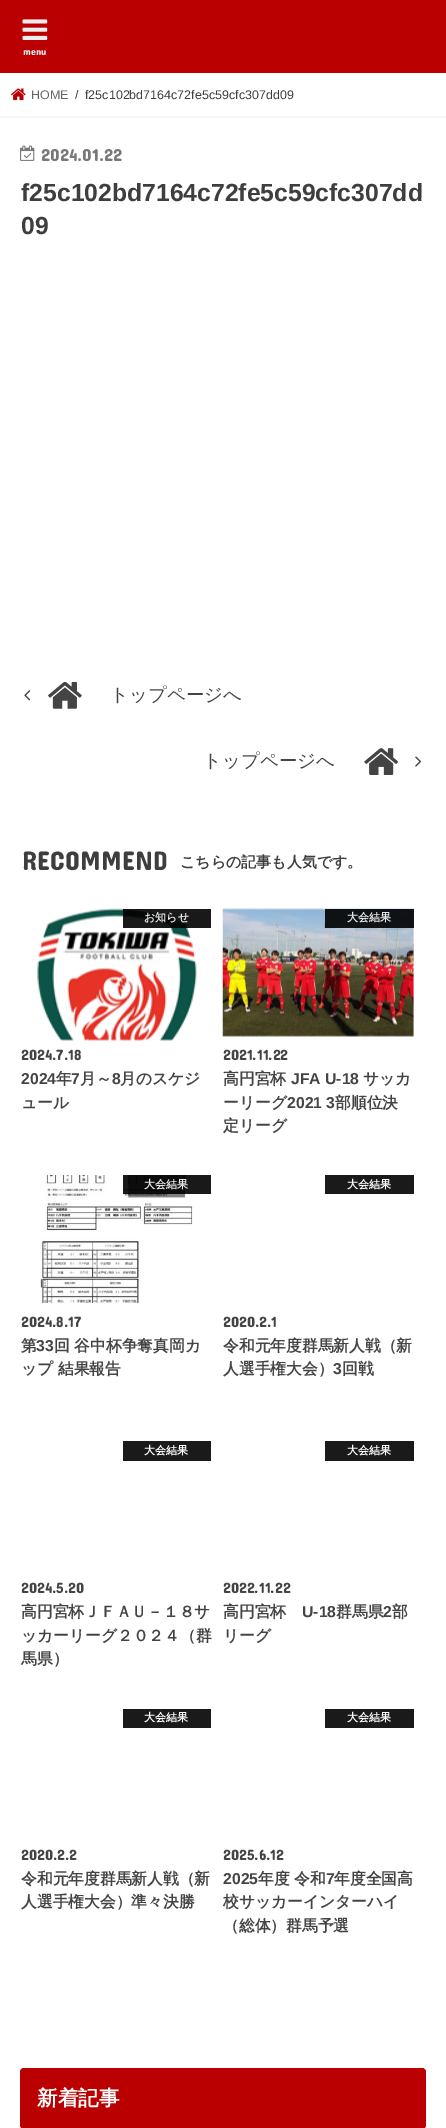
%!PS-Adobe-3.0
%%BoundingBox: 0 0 446 2128
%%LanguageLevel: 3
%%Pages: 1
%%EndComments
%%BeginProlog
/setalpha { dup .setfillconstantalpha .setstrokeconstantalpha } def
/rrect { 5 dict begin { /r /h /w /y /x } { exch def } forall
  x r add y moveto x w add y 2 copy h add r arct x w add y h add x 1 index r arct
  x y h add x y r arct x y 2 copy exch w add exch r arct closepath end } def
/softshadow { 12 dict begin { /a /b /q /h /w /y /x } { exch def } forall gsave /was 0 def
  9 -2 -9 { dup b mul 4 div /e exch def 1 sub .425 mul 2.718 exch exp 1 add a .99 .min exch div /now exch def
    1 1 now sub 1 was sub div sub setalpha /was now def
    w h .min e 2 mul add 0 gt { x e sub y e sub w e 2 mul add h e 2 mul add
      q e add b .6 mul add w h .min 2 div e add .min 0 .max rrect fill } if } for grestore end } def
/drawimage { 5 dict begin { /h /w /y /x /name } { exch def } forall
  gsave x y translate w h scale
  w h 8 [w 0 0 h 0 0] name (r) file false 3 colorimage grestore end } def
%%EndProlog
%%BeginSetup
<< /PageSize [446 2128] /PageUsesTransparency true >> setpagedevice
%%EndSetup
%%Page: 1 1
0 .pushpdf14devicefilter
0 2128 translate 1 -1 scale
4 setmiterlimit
1 setgray
0 0 446 2128 rectfill
0.729 0 0 setrgbcolor
0 0 446 73 rectfill
(images/1.raw) 22 19 26 21 drawimage
0.969 setgray
0 116 446 1 rectfill
(images/2.raw) 11 88 15 13 drawimage
0.867 setgray
0 118 446 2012 0 0.5 1 softshadow
1 setgray
0 118 446 2010 rectfill
(images/3.raw) 20 145 15 16 drawimage
(images/4.raw) 24 690 7 11 drawimage
(images/5.raw) 48 681 34 28 drawimage
(images/6.raw) 364 748 34 27 drawimage
(images/7.raw) 415 756 7 11 drawimage
(images/8.raw) 37 908 160 133 drawimage
0.9 setalpha
0 setgray
123 909 88 19 rectfill
1 setalpha
(images/9.raw) 222 908 192 129 drawimage
0.9 setalpha
325 909 89 19 rectfill
1 setalpha
(images/10.raw) 40 1175 153 128 drawimage
0.9 setalpha
123 1175 88 19 rectfill
1 setalpha
0.102 setgray
325 1175 89 19 rectfill
123 1441 88 20 rectfill
325 1441 89 20 rectfill
123 1709 88 19 rectfill
325 1709 89 19 rectfill
0.729 0 0 setrgbcolor
20 2068 406 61 4 rrect fill
/ConcertOne-Regular [10 0 0 -10 0 0] selectfont
0.933 setgray
23 55 moveto (menu) show
/LiberationSans-Regular [12.5 0 0 -12.5 0 0] selectfont
0.4 setgray
31 99 moveto (HOME) show
0.243 setgray
75 99 moveto (/) show
85 99 moveto (f25c102bd7164c72fe5c59cfc307dd09) show
/ConcertOne-Regular [17.5 0 0 -17.5 0 0] selectfont
0.471 setgray
41 161 moveto (2024.01.22) show
/LiberationSans-Bold [24.75 0 0 -24.75 0 0] selectfont
0.243 setgray
21 201 moveto (f25c102bd7164c72fe5c59cfc307dd) show
21 234 moveto (09) show
/WenQuanYiZenHei-Medium [18.5 0 0 -18.5 0 0] selectfont
0.267 setgray
110 701 moveto (トップページへ) show
203 767 moveto (トップページへ) show
/ConcertOne-Regular [27 0 0 -27 0 0] selectfont
0.243 setgray
22 870 moveto (RECOMMEND) show
/WenQuanYiZenHei-Bold [15 0 0 -15 0 0] selectfont
180 867 moveto (こちらの記事も人気です。) show
/WenQuanYiZenHei-Bold [11 0 0 -11 0 0] selectfont
0.906 setgray
144 921 moveto (お知らせ) show
/ConcertOne-Regular [15 0 0 -15 0 0] selectfont
0.267 setgray
21 1060 moveto (2024.7.18) show
/LiberationSans-Bold [15.75 0 0 -15.75 0 0] selectfont
21 1084 moveto (2024) show
/WenQuanYiZenHei-Bold [15.75 0 0 -15.75 0 0] selectfont
56 1084 moveto (年) show
/LiberationSans-Bold [15.75 0 0 -15.75 0 0] selectfont
71 1084 moveto (7) show
/WenQuanYiZenHei-Bold [15.75 0 0 -15.75 0 0] selectfont
80 1084 moveto (月～) show
/LiberationSans-Bold [15.75 0 0 -15.75 0 0] selectfont
112 1084 moveto (8) show
/WenQuanYiZenHei-Bold [15.75 0 0 -15.75 0 0] selectfont
120 1084 moveto (月のスケジ) show
21 1108 moveto (ュール) show
/WenQuanYiZenHei-Bold [11 0 0 -11 0 0] selectfont
0.906 setgray
347 921 moveto (大会結果) show
/ConcertOne-Regular [15 0 0 -15 0 0] selectfont
0.267 setgray
223 1060 moveto (2021.11.22) show
/WenQuanYiZenHei-Bold [15.75 0 0 -15.75 0 0] selectfont
223 1084 moveto (高円宮杯) show
/LiberationSans-Bold [15.75 0 0 -15.75 0 0] selectfont
291 1084 moveto (JFA U-18) show
/WenQuanYiZenHei-Bold [15.75 0 0 -15.75 0 0] selectfont
363 1084 moveto (サッカ) show
223 1108 moveto (ーリーグ) show
/LiberationSans-Bold [15.75 0 0 -15.75 0 0] selectfont
287 1108 moveto (2021 3) show
/WenQuanYiZenHei-Bold [15.75 0 0 -15.75 0 0] selectfont
335 1108 moveto (部順位決) show
223 1131 moveto (定リーグ) show
/WenQuanYiZenHei-Bold [11 0 0 -11 0 0] selectfont
0.906 setgray
144 1188 moveto (大会結果) show
/ConcertOne-Regular [15 0 0 -15 0 0] selectfont
0.267 setgray
21 1327 moveto (2024.8.17) show
/WenQuanYiZenHei-Bold [15.75 0 0 -15.75 0 0] selectfont
21 1351 moveto (第) show
/LiberationSans-Bold [15.75 0 0 -15.75 0 0] selectfont
36 1351 moveto (33) show
/WenQuanYiZenHei-Bold [15.75 0 0 -15.75 0 0] selectfont
54 1351 moveto (回 谷中杯争奪真岡カ) show
21 1374 moveto (ップ 結果報告) show
/WenQuanYiZenHei-Bold [11 0 0 -11 0 0] selectfont
1 setgray
347 1188 moveto (大会結果) show
/ConcertOne-Regular [15 0 0 -15 0 0] selectfont
0.267 setgray
223 1327 moveto (2020.2.1) show
/WenQuanYiZenHei-Bold [15.75 0 0 -15.75 0 0] selectfont
223 1351 moveto (令和元年度群馬新人戦（新) show
223 1374 moveto (人選手権大会）) show
/LiberationSans-Bold [15.75 0 0 -15.75 0 0] selectfont
333 1374 moveto (3) show
/WenQuanYiZenHei-Bold [15.75 0 0 -15.75 0 0] selectfont
342 1374 moveto (回戦) show
/WenQuanYiZenHei-Bold [11 0 0 -11 0 0] selectfont
1 setgray
144 1454 moveto (大会結果) show
/ConcertOne-Regular [15 0 0 -15 0 0] selectfont
0.267 setgray
21 1593 moveto (2024.5.20) show
/WenQuanYiZenHei-Bold [15.75 0 0 -15.75 0 0] selectfont
21 1617 moveto (高円宮杯ＪＦＡＵ－１８サ) show
21 1641 moveto (ッカーリーグ２０２４（群) show
21 1664 moveto (馬県）) show
/WenQuanYiZenHei-Bold [11 0 0 -11 0 0] selectfont
1 setgray
347 1454 moveto (大会結果) show
/ConcertOne-Regular [15 0 0 -15 0 0] selectfont
0.267 setgray
223 1593 moveto (2022.11.22) show
/WenQuanYiZenHei-Bold [15.75 0 0 -15.75 0 0] selectfont
223 1617 moveto (高円宮杯) show
/LiberationSans-Bold [15.75 0 0 -15.75 0 0] selectfont
302 1617 moveto (U-18) show
/WenQuanYiZenHei-Bold [15.75 0 0 -15.75 0 0] selectfont
336 1617 moveto (群馬県) show
/LiberationSans-Bold [15.75 0 0 -15.75 0 0] selectfont
383 1617 moveto (2) show
/WenQuanYiZenHei-Bold [15.75 0 0 -15.75 0 0] selectfont
392 1617 moveto (部) show
223 1641 moveto (リーグ) show
/WenQuanYiZenHei-Bold [11 0 0 -11 0 0] selectfont
1 setgray
144 1721 moveto (大会結果) show
/ConcertOne-Regular [15 0 0 -15 0 0] selectfont
0.267 setgray
21 1860 moveto (2020.2.2) show
/WenQuanYiZenHei-Bold [15.75 0 0 -15.75 0 0] selectfont
21 1884 moveto (令和元年度群馬新人戦（新) show
21 1907 moveto (人選手権大会）準々決勝) show
/WenQuanYiZenHei-Bold [11 0 0 -11 0 0] selectfont
1 setgray
347 1721 moveto (大会結果) show
/ConcertOne-Regular [15 0 0 -15 0 0] selectfont
0.267 setgray
223 1860 moveto (2025.6.12) show
/LiberationSans-Bold [15.75 0 0 -15.75 0 0] selectfont
223 1884 moveto (2025) show
/WenQuanYiZenHei-Bold [15.75 0 0 -15.75 0 0] selectfont
258 1884 moveto (年度 令和) show
/LiberationSans-Bold [15.75 0 0 -15.75 0 0] selectfont
326 1884 moveto (7) show
/WenQuanYiZenHei-Bold [15.75 0 0 -15.75 0 0] selectfont
334 1884 moveto (年度全国高) show
223 1907 moveto (校サッカーインターハイ) show
223 1931 moveto (（総体）群馬予選) show
/WenQuanYiZenHei-Bold [20.5 0 0 -20.5 0 0] selectfont
1 setgray
37 2105 moveto (新着記事) show
.poppdf14devicefilter showpage
%%EOF
